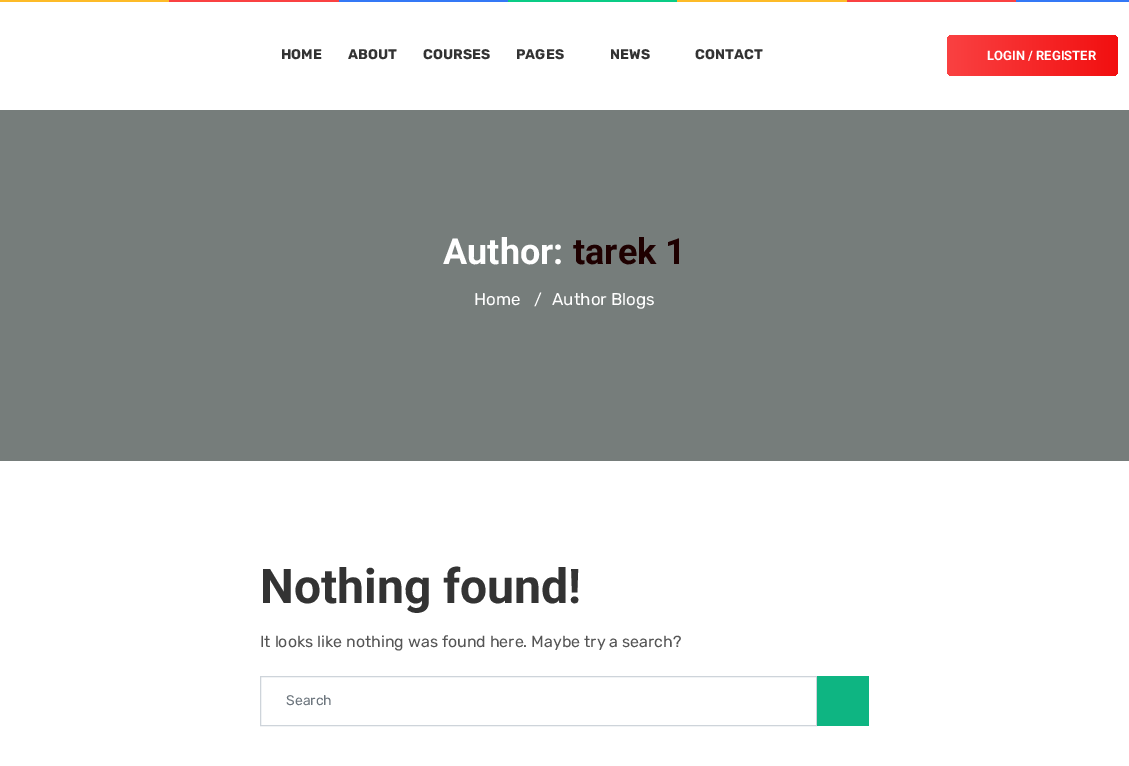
%!PS-Adobe-3.0
%%BoundingBox: 0 0 1129 766
%%LanguageLevel: 3
%%Pages: 1
%%EndComments
%%BeginProlog
/rrect { 5 dict begin { /r /h /w /y /x } { exch def } forall
  x r add y moveto x w add y 2 copy h add r arct x w add y h add x 1 index r arct
  x y h add x y r arct x y 2 copy exch w add exch r arct closepath end } def
%%EndProlog
%%BeginSetup
<< /PageSize [1129 766] >> setpagedevice
%%EndSetup
%%Page: 1 1
0 766 translate 1 -1 scale
4 setmiterlimit
1 setgray
0 0 1129 766 rectfill
0.992 0.733 0.157 setrgbcolor
0 0 169 2 rectfill
0.98 0.255 0.259 setrgbcolor
169 0 170 2 rectfill
0.204 0.471 0.965 setrgbcolor
339 0 169 2 rectfill
0.039 0.8 0.525 setrgbcolor
508 0 169 2 rectfill
0.992 0.733 0.157 setrgbcolor
677 0 170 2 rectfill
0.98 0.255 0.259 setrgbcolor
847 0 169 2 rectfill
0.204 0.471 0.965 setrgbcolor
1016 0 113 2 rectfill
gsave 947 35 171 41 5 rrect clip newpath
<< /ShadingType 2 /ColorSpace /DeviceRGB /Coords [947 56 1118 55] /Extend [true true] /Function << /FunctionType 2 /Domain [0 1] /C0 [0.98 0.255 0.259] /C1 [0.949 0.059 0.063] /N 1 >> >> shfill grestore
0.463 0.49 0.482 setrgbcolor
0 110 1129 351 rectfill
0.808 0.831 0.855 setrgbcolor
260.5 676.5 556 49 rectstroke
0.055 0.71 0.51 setrgbcolor
817 676 52 50 rectfill
/Rubik-Bold [14 0 0 -14 0 0] selectfont
0.2 setgray
281 59 moveto (HOME) show
348 59 moveto (ABOUT) show
423 59 moveto (COURSES) show
516 59 moveto (PAGES) show
610 59 moveto (NEWS) show
695 59 moveto (CONTACT) show
/Roboto-Bold [13 0 0 -13 0 0] selectfont
1 setgray
987 60 moveto (LOGIN / REGISTER) show
/Roboto-Bold [36 0 0 -36 0 0] selectfont
443 264 moveto (Author:) show
0.118 0 0 setrgbcolor
573 264 moveto (tarek 1) show
/Rubik-Regular [17 0 0 -17 0 0] selectfont
1 setgray
474 305 moveto (Home) show
/Rubik-Regular [16 0 0 -16 0 0] selectfont
534 305 moveto (/) show
/Rubik-Regular [17 0 0 -17 0 0] selectfont
552 305 moveto (Author Blogs) show
/Roboto-Bold [48 0 0 -48 0 0] selectfont
0.2 setgray
260 603 moveto (Nothing found!) show
/Rubik-Regular [16 0 0 -16 0 0] selectfont
0.333 setgray
260 647 moveto (It looks like nothing was found here. Maybe try a search?) show
/Rubik-Regular [14 0 0 -14 0 0] selectfont
0.424 0.459 0.49 setrgbcolor
286 705 moveto (Search) show
showpage
%%EOF
